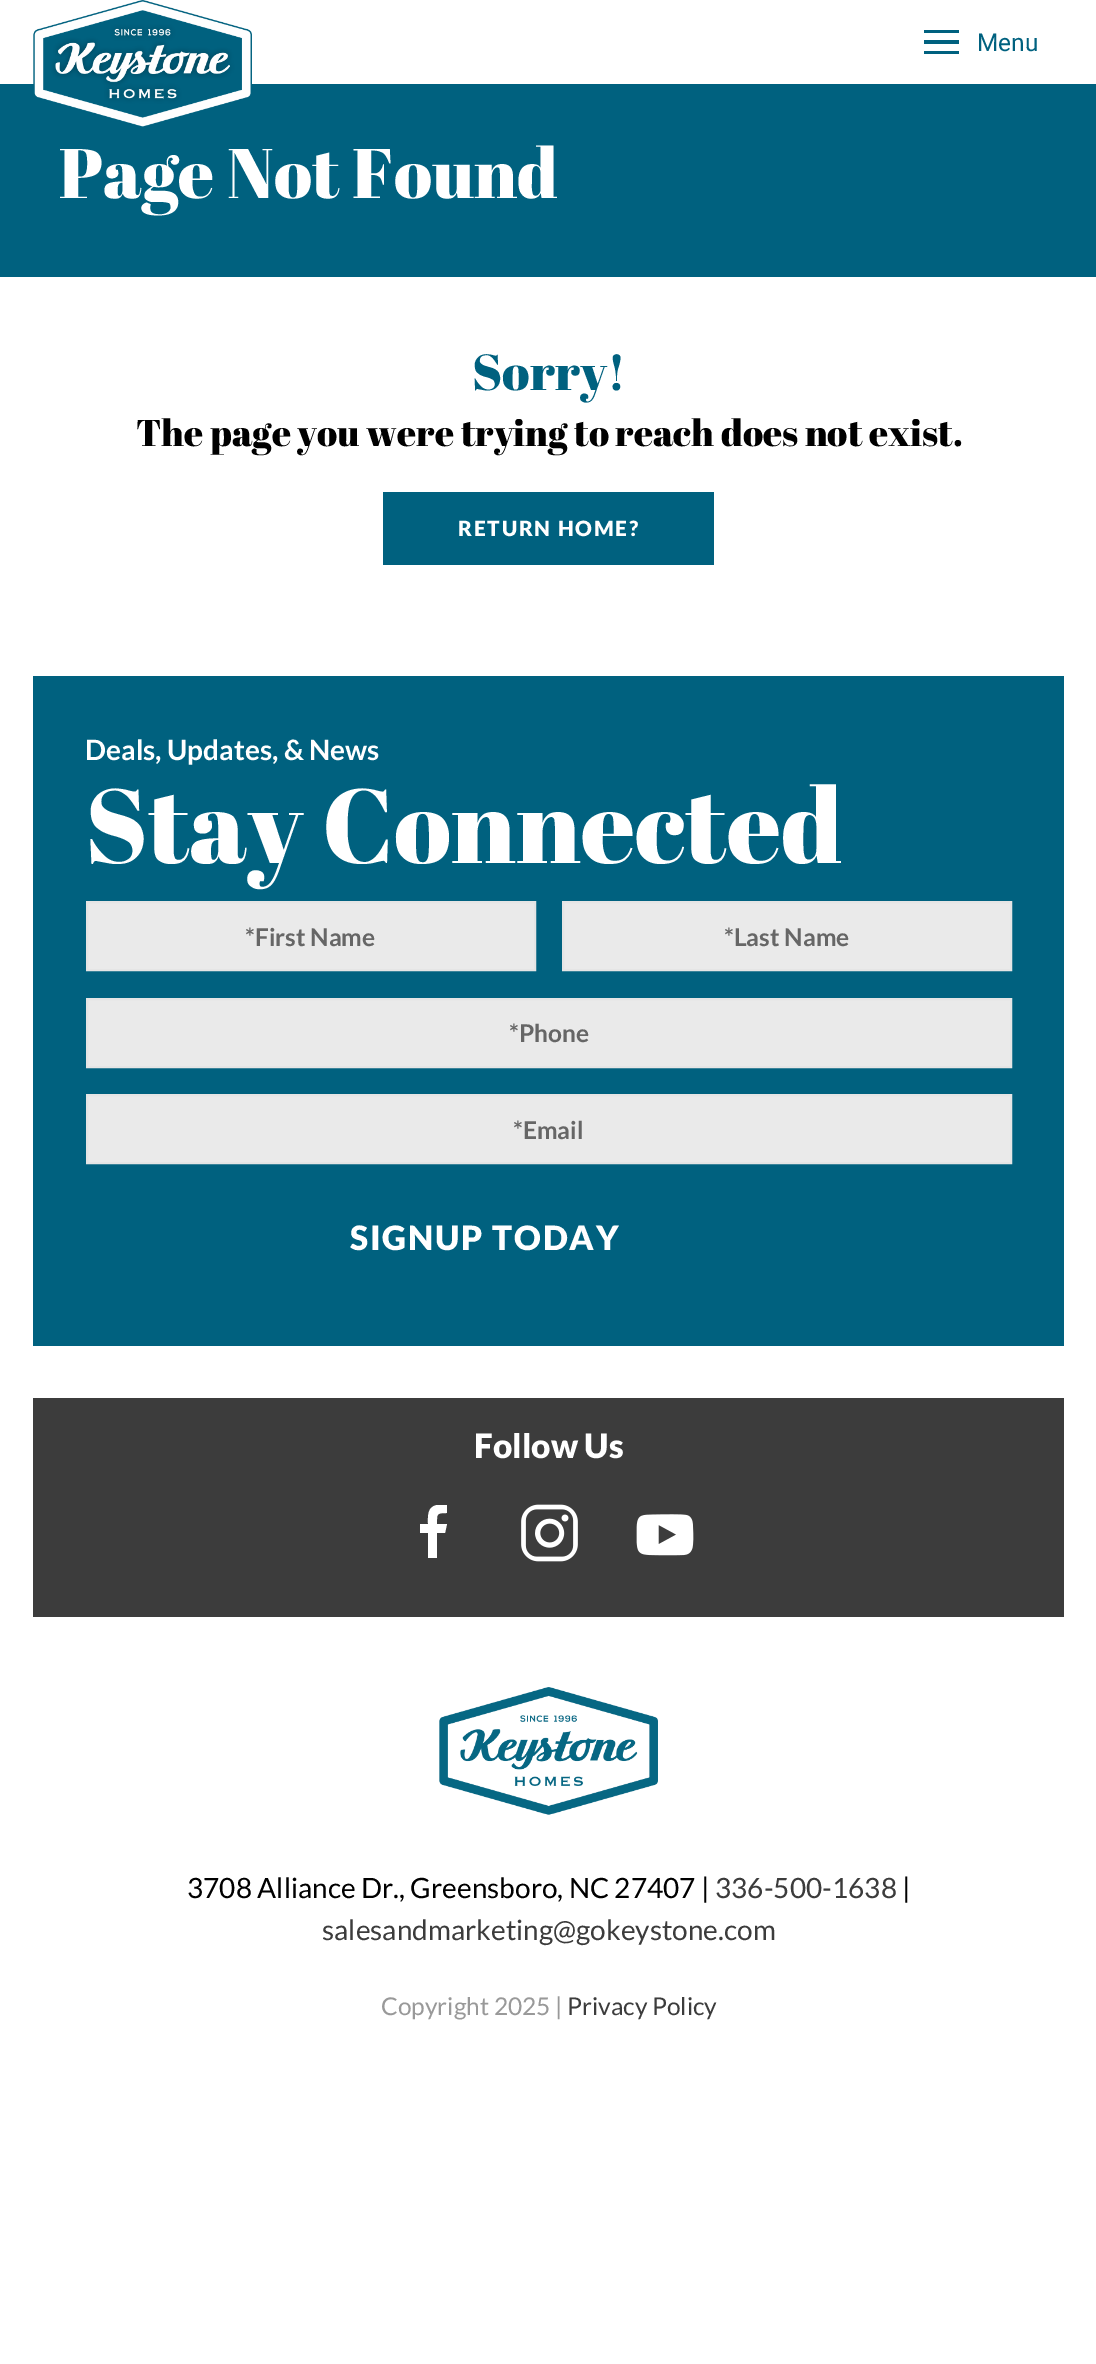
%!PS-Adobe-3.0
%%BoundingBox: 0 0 1096 2364
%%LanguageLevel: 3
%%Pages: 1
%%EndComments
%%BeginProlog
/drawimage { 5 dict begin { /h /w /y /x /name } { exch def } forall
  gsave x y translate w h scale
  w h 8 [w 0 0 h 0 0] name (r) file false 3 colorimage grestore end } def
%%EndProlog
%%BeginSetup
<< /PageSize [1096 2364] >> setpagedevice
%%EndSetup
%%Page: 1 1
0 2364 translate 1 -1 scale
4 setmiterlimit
1 setgray
0 0 1096 2364 rectfill
0 0.38 0.498 setrgbcolor
0 84 1096 193 rectfill
(images/1.raw) 33 0 219 127 drawimage
924 30 35 3 rectfill
924 40 35 4 rectfill
924 51 35 3 rectfill
383 492 331 73 rectfill
33 676 1031 670 rectfill
0.918 setgray
newpath 87 902 moveto 535 902 lineto 535 970 lineto 87 970 lineto closepath gsave fill grestore
0.898 setgray
2 setlinewidth
stroke
0.918 setgray
newpath 563 902 moveto 1011 902 lineto 1011 970 lineto 563 970 lineto closepath gsave fill grestore
0.898 setgray
stroke
0.918 setgray
newpath 87 999 moveto 1011 999 lineto 1011 1067 lineto 87 1067 lineto closepath gsave fill grestore
0.898 setgray
stroke
0.918 setgray
newpath 87 1095 moveto 1011 1095 lineto 1011 1163 lineto 87 1163 lineto closepath gsave fill grestore
0.898 setgray
stroke
0.235 setgray
33 1398 1031 219 rectfill
1 setgray
newpath 437 1533 moveto 445 1533 lineto 447 1524 lineto 437 1524 lineto 437 1514 436 1513 447 1513 curveto 447 1505 lineto 437 1505 lineto 427 1507 428 1516 428 1524 curveto 420 1524 lineto 420 1533 lineto 428 1533 lineto 428 1558 lineto 437 1558 lineto closepath fill
(images/2.raw) 521 1504 57 58 drawimage
(images/3.raw) 636 1514 58 42 drawimage
(images/4.raw) 439 1687 219 128 drawimage
/Roboto-Regular [24.5 0 0 -24.5 0 0] selectfont
0 0.38 0.498 setrgbcolor
977 51 moveto (Menu) show
/AbrilFatface-Regular [70 0 0 -70 0 0] selectfont
1 setgray
59 198 moveto (Page Not Found) show
/AbrilFatface-Regular [50.5 0 0 -50.5 0 0] selectfont
0 0.38 0.498 setrgbcolor
472 390 moveto (Sorry!) show
/AbrilFatface-Regular [37.1 0 0 -37.1 0 0] selectfont
0 setgray
136 446 moveto (The page you were trying to reach does not exist.) show
/Lato-Black [21 0 0 -21 0 0] selectfont
1 setgray
458 536 moveto 1.75 0 (RETURN HOME?) ashow
/Lato-Bold [28 0 0 -28 0 0] selectfont
85 760 moveto (Deals, Updates, & News) show
/AbrilFatface-Regular [105 0 0 -105 0 0] selectfont
85 863 moveto (Stay Connected) show
/Lato-Bold [24.5 0 0 -24.5 0 0] selectfont
0.4 setgray
245 946 moveto (*First Name) show
724 946 moveto (*Last Name) show
509 1042 moveto (*Phone) show
513 1139 moveto (*Email) show
/Lato-Black [33.5 0 0 -33.5 0 0] selectfont
1 setgray
350 1250 moveto 1.75 0 (SIGNUP TODAY) ashow
474 1458 moveto (Follow Us) show
/Lato-Regular [28 0 0 -28 0 0] selectfont
0 setgray
187 1898 moveto (3708 Alliance Dr., Greensboro, NC 27407 |) show
0.235 setgray
715 1898 moveto (336-500-1638) show
0 setgray
902 1898 moveto (|) show
0.235 setgray
322 1940 moveto (salesandmarketing@gokeystone.com) show
/Lato-Regular [24.5 0 0 -24.5 0 0] selectfont
0.6 setgray
381 2015 moveto (Copyright 2025 |) show
0.235 setgray
567 2015 moveto (Privacy Policy) show
showpage
%%EOF
